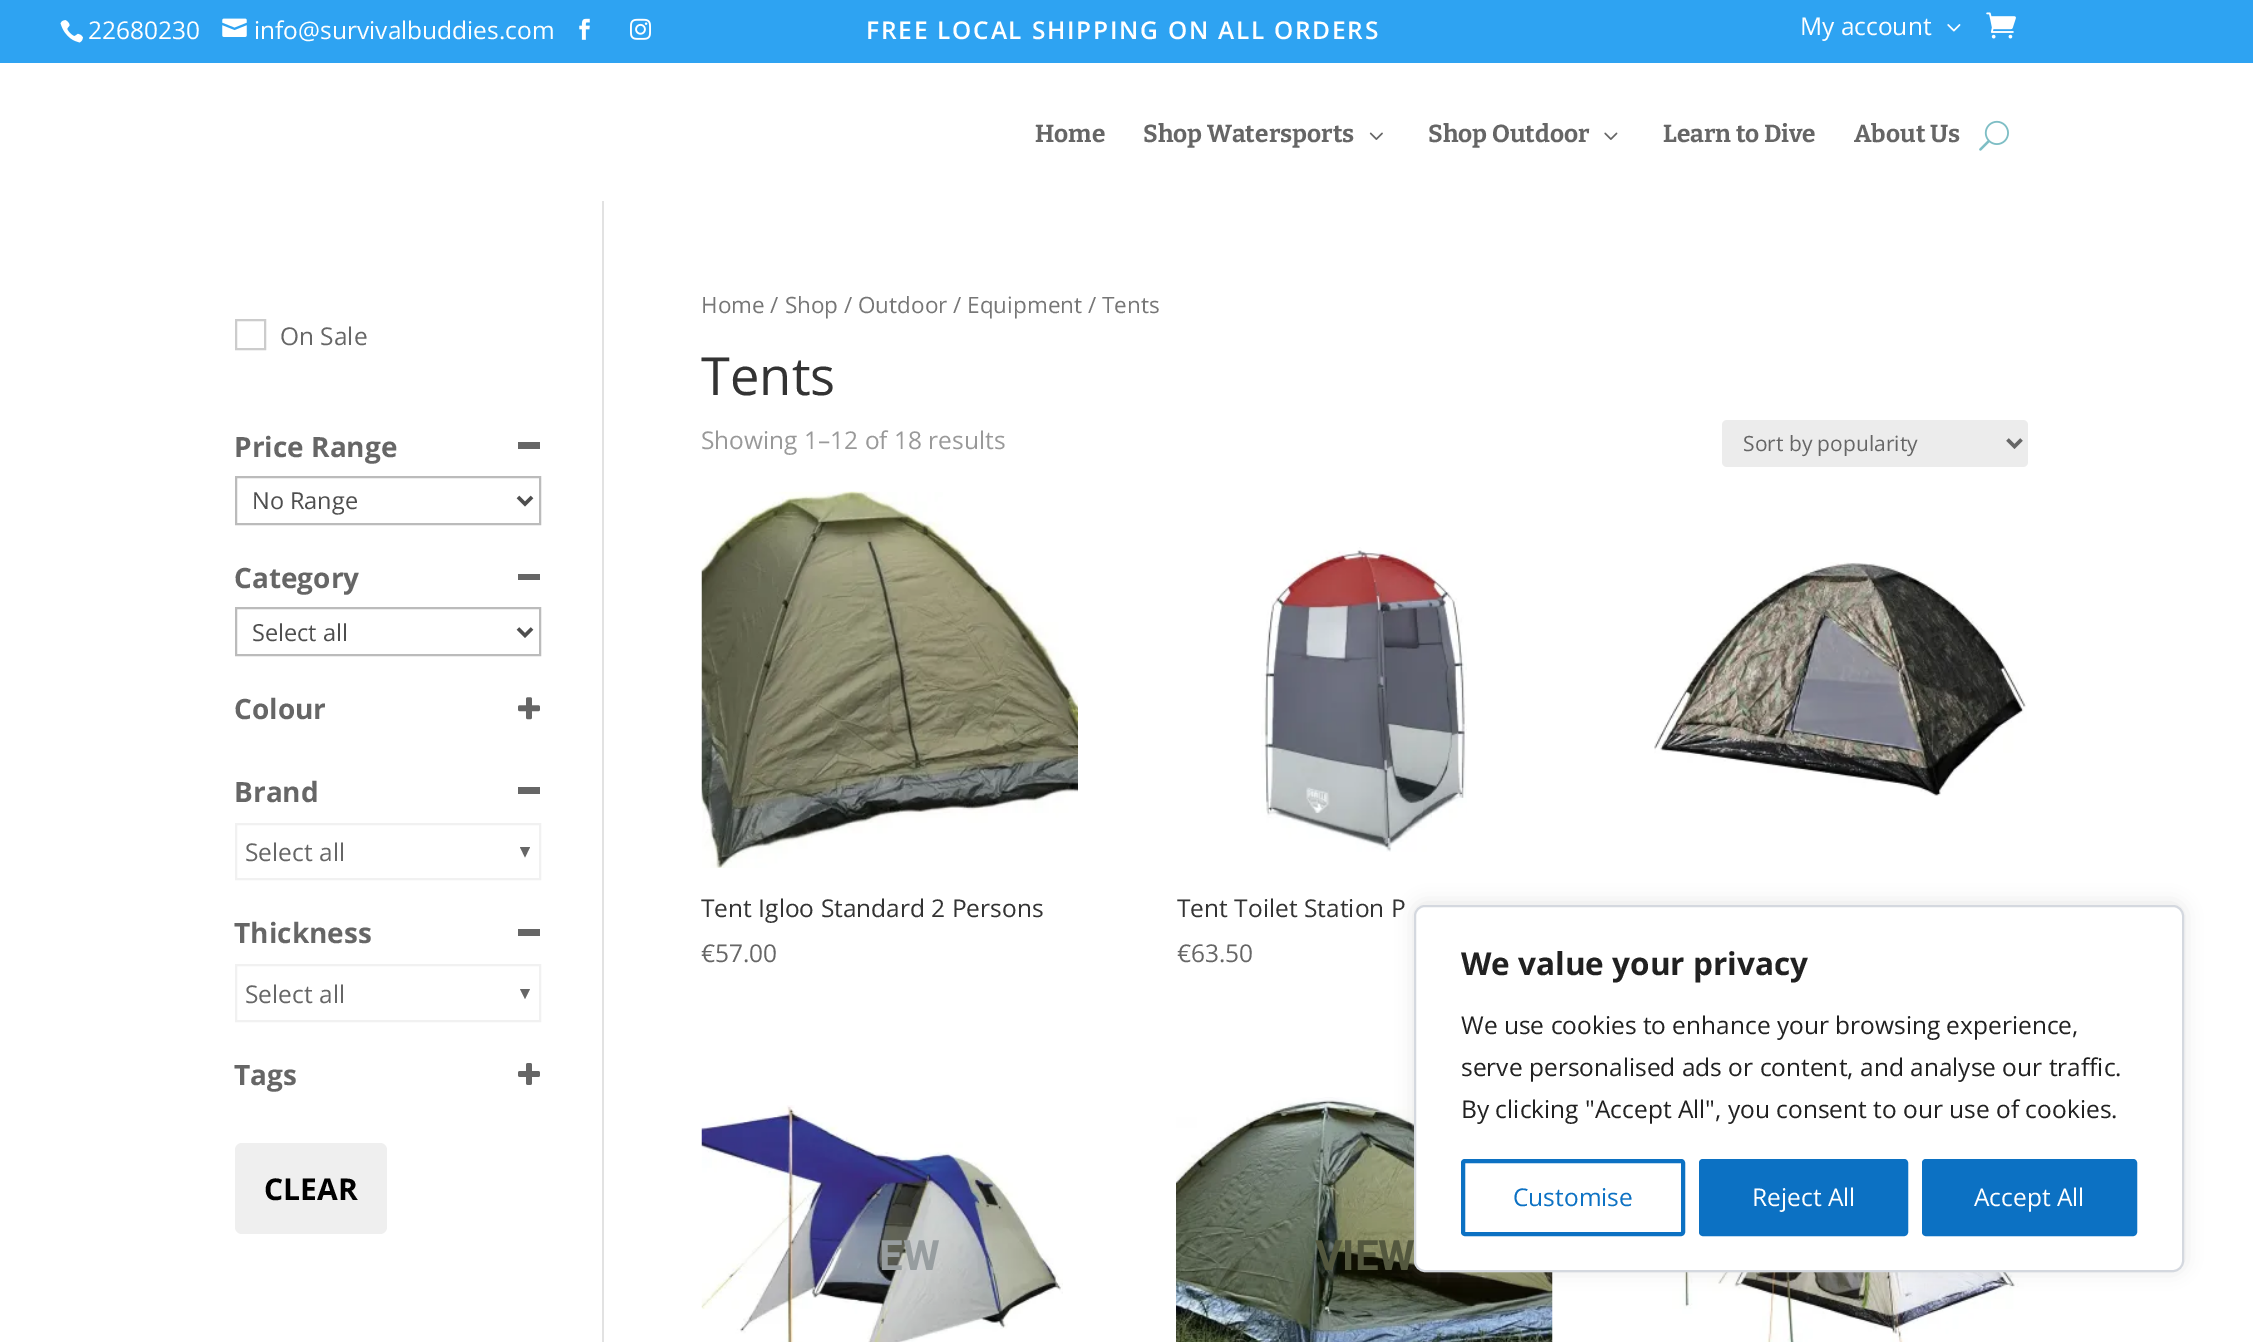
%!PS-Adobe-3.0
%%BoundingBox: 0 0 2253 1342
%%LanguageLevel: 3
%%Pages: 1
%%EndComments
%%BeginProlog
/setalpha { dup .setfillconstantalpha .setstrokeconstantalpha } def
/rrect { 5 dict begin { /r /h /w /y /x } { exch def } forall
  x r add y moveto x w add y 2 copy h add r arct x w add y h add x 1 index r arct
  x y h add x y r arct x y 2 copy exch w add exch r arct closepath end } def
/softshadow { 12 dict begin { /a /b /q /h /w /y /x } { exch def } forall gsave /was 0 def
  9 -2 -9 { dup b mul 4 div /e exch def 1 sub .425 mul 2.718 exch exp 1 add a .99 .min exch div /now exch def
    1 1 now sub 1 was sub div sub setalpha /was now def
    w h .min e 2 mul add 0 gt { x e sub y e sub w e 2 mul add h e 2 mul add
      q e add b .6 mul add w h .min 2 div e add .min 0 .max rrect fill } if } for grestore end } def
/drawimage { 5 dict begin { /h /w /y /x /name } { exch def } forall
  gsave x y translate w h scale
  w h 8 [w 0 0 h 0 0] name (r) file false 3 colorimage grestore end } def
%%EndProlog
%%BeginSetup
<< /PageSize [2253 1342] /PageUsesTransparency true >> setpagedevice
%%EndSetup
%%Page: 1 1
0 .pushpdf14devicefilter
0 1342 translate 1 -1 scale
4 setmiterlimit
1 setgray
0 0 2253 1342 rectfill
0.18 0.639 0.949 setrgbcolor
0 0 2253 63 rectfill
(images/1.raw) 60 20 23 23 drawimage
(images/2.raw) 222 18 25 19 drawimage
(images/3.raw) 579 18 11 22 drawimage
(images/4.raw) 630 18 21 22 drawimage
(images/5.raw) 1947 24 14 8 drawimage
(images/6.raw) 1986 12 30 27 drawimage
(images/7.raw) 1369 132 14 8 drawimage
(images/8.raw) 1604 132 14 8 drawimage
(images/9.raw) 1979 120 30 31 drawimage
0.886 setgray
602 201 2 1141 rectfill
0.8 setgray
2 setlinewidth
236 320 29 29 rectstroke
0.4 setgray
518 442 22 7 rectfill
0.733 setgray
236 477 304 47 rectstroke
0.306 setgray
3.5 setlinewidth
newpath 518 497 moveto 525 504 lineto 532 497 lineto stroke
0.4 setgray
518 574 22 6 rectfill
0.733 setgray
2 setlinewidth
236 608 304 47 rectstroke
0.306 setgray
3.5 setlinewidth
newpath 518 628.5 moveto 525 635.5 lineto 532 628.5 lineto stroke
(images/10.raw) 518 697 22 23 drawimage
0.4 setgray
518 787 22 7 rectfill
0.945 setgray
2 setlinewidth
236 824 304 55 rectstroke
0.4 setgray
newpath 520 847 moveto 530 847 lineto 525 857.5 lineto closepath fill
518 929 22 7 rectfill
0.945 setgray
236 965 304 56 rectstroke
0.4 setgray
newpath 520 989 moveto 530 989 lineto 525 999 lineto closepath fill
(images/11.raw) 518 1063 22 22 drawimage
0.937 setgray
235 1143 152 91 7 rrect fill
0.925 setgray
1722 420 306 47 5 rrect fill
0.4 setgray
3.5 setlinewidth
newpath 2007.5 439.5 moveto 2014.5 446.5 lineto 2021.5 439.5 lineto stroke
(images/12.raw) 1654 562 373 234 drawimage
(images/13.raw) 701 491 377 377 drawimage
(images/14.raw) 1261 547 206 305 drawimage
(images/15.raw) 701 1105 362 237 drawimage
(images/16.raw) 1176 1097 377 245 drawimage
(images/17.raw) 1656 1272 371 70 drawimage
0.675 0.671 0.671 setrgbcolor
1414 903 770 368 11 9 0.3 softshadow
/OpenSans-Regular [24.5 0 0 -24.5 0 0] selectfont
1 setgray
88 39 moveto (22680230) show
254 39 moveto (info@survivalbuddies.com) show
/OpenSans-SemiBold [24.5 0 0 -24.5 0 0] selectfont
866 39 moveto 1.75 0 (FREE LOCAL SHIPPING ON ALL ORDERS) ashow
/OpenSans-Regular [24.5 0 0 -24.5 0 0] selectfont
1800 35 moveto (My account) show
/Bitter-Bold [24.5 0 0 -24.5 0 0] selectfont
0.4 setgray
1035 142 moveto (Home) show
1143 142 moveto (Shop Watersports) show
1428 142 moveto (Shop Outdoor) show
1663 142 moveto (Learn to Dive) show
1854 142 moveto (About Us) show
/OpenSans-Regular [24.5 0 0 -24.5 0 0] selectfont
280 345 moveto (On Sale) show
/OpenSans-Bold [28 0 0 -28 0 0] selectfont
234 457 moveto (Price Range) show
/OpenSans-Regular [23.5 0 0 -23.5 0 0] selectfont
0.306 setgray
252 509 moveto (No Range) show
/OpenSans-Bold [28 0 0 -28 0 0] selectfont
0.4 setgray
234 588 moveto (Category) show
/OpenSans-Regular [23.5 0 0 -23.5 0 0] selectfont
0.306 setgray
252 641 moveto (Select all) show
/OpenSans-Bold [28 0 0 -28 0 0] selectfont
0.4 setgray
234 719 moveto (Colour) show
234 802 moveto (Brand) show
/OpenSans-Regular [24.5 0 0 -24.5 0 0] selectfont
245 861 moveto (Select all) show
/OpenSans-Bold [28 0 0 -28 0 0] selectfont
234 943 moveto (Thickness) show
/OpenSans-Regular [24.5 0 0 -24.5 0 0] selectfont
245 1003 moveto (Select all) show
/OpenSans-Bold [28 0 0 -28 0 0] selectfont
234 1085 moveto (Tags) show
/OpenSans-Bold [30 0 0 -30 0 0] selectfont
0 setgray
264 1200 moveto (CLEAR) show
/OpenSans-Regular [22.5 0 0 -22.5 0 0] selectfont
0.463 setgray
701 313 moveto (Home / Shop / Outdoor / Equipment / Tents) show
/OpenSans-Regular [52.5 0 0 -52.5 0 0] selectfont
0.2 setgray
701 395 moveto (Tents) show
/OpenSans-Regular [24.5 0 0 -24.5 0 0] selectfont
0.6 setgray
701 449 moveto (Showing 1–12 of 18 results) show
/OpenSans-Regular [21 0 0 -21 0 0] selectfont
0.4 setgray
1743 451 moveto (Sort by popularity) show
/OpenSans-Regular [24.5 0 0 -24.5 0 0] selectfont
0.2 setgray
701 917 moveto (Tent Igloo Standard 2 Persons) show
0.4 setgray
701 962 moveto (€57.00) show
0.2 setgray
1177 917 moveto (Tent Toilet Station P) show
0.4 setgray
1177 962 moveto (€63.50) show
/Roboto-Bold [42 0 0 -42 0 0] selectfont
0.592 0.616 0.624 setrgbcolor
879 1270 moveto (EW) show
0.325 0.341 0.243 setrgbcolor
1315 1270 moveto (VIEW) show
1 setgray
1415 906 768 365 10 rrect gsave fill grestore
0.831 0.847 0.875 setrgbcolor
2 setlinewidth
stroke
/OpenSans-Bold [31.5 0 0 -31.5 0 0] selectfont
0.129 setgray
1461 975 moveto (We value your privacy) show
/OpenSans-Regular [24.5 0 0 -24.5 0 0] selectfont
1461 1034 moveto (We use cookies to enhance your browsing experience,) show
1461 1076 moveto (serve personalised ads or content, and analyse our traffic.) show
1461 1118 moveto (By clicking "Accept All", you consent to our use of cookies.) show
0.047 0.443 0.765 setrgbcolor
4 setlinewidth
1463 1161 220 73 2 rrect stroke
1513 1206 moveto (Customise) show
1701 1161 205 73 2 rrect gsave fill grestore
stroke
1 setgray
1752 1206 moveto (Reject All) show
0.047 0.443 0.765 setrgbcolor
1924 1161 211 73 2 rrect gsave fill grestore
stroke
1 setgray
1974 1206 moveto (Accept All) show
.poppdf14devicefilter showpage
%%EOF
